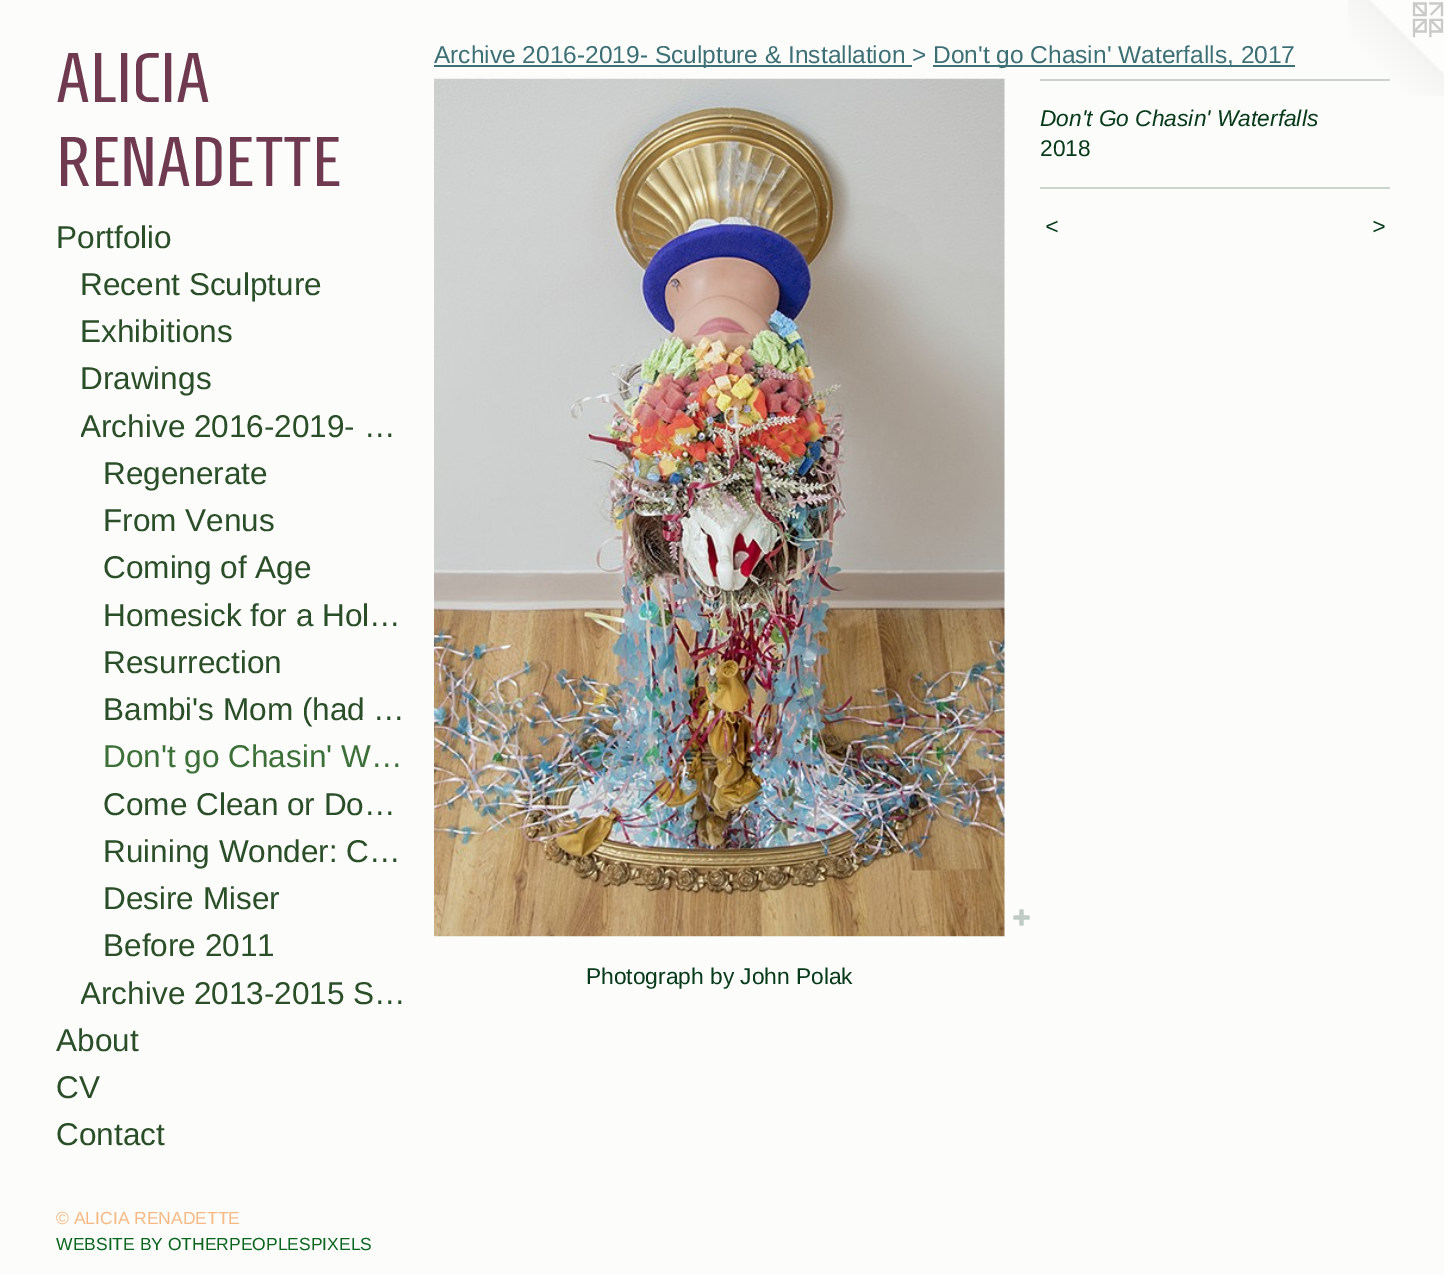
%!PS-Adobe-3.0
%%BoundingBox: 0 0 1444 1275
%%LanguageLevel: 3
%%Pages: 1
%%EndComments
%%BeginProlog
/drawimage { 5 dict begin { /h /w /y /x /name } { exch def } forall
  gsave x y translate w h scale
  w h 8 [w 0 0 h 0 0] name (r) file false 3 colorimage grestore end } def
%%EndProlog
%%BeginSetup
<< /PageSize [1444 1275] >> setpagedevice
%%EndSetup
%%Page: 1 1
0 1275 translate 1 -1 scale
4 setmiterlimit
0.988 0.988 0.984 setrgbcolor
0 0 1444 1275 rectfill
0.239 0.439 0.459 setrgbcolor
434 65 478 2 rectfill
933 65 362 2 rectfill
(images/1.raw) 434 78 571 859 drawimage
(images/2.raw) 1013 909 17 17 drawimage
(images/3.raw) 1348 0 96 96 drawimage
0.796 0.835 0.808 setrgbcolor
1040 79 350 2 rectfill
1040 187 350 2 rectfill
/Homenaje-Regular [70 0 0 -70 0 0] selectfont
0.435 0.224 0.314 setrgbcolor
56 102 moveto (ALICIA) show
56 186 moveto (RENADETTE) show
/LiberationSans-Regular [31.5 0 0 -31.5 0 0] selectfont
0.165 0.306 0.153 setrgbcolor
56 248 moveto (Portfolio) show
80 295 moveto (Recent Sculpture) show
80 342 moveto (Exhibitions) show
80 389 moveto (Drawings) show
gsave
81 404 325 48 rectclip
80 437 moveto (Archive 2016-2019- …) show
grestore
103 484 moveto (Regenerate) show
103 531 moveto (From Venus) show
103 578 moveto (Coming of Age) show
103 626 moveto (Homesick for a Hol…) show
103 673 moveto (Resurrection) show
103 720 moveto (Bambi's Mom \(had …) show
0.235 0.439 0.22 setrgbcolor
103 767 moveto (Don't go Chasin' W…) show
0.165 0.306 0.153 setrgbcolor
103 815 moveto (Come Clean or Do…) show
103 862 moveto (Ruining Wonder: C…) show
103 909 moveto (Desire Miser) show
103 956 moveto (Before 2011) show
gsave
81 971 325 48 rectclip
80 1004 moveto (Archive 2013-2015 S…) show
grestore
56 1051 moveto (About) show
56 1098 moveto (CV) show
56 1145 moveto (Contact) show
/LiberationSans-Regular [17.5 0 0 -17.5 0 0] selectfont
0.973 0.722 0.506 setrgbcolor
56 1224 moveto (© ALICIA RENADETTE) show
0.031 0.396 0.114 setrgbcolor
56 1250 moveto (WEBSITE BY OTHERPEOPLESPIXELS) show
/LiberationSans-Regular [24.5 0 0 -24.5 0 0] selectfont
0.239 0.439 0.459 setrgbcolor
434 63 moveto (Archive 2016-2019- Sculpture & Installation >) show
933 63 moveto (Don't go Chasin' Waterfalls, 2017) show
/LiberationSans-Italic [22.75 0 0 -22.75 0 0] selectfont
0.027 0.227 0.106 setrgbcolor
1040 126 moveto (Don't Go Chasin' Waterfalls) show
/LiberationSans-Regular [22.75 0 0 -22.75 0 0] selectfont
1040 156 moveto (2018) show
/LiberationSans-Italic [22.75 0 0 -22.75 0 0] selectfont
1045 234 moveto 2 0 (<) ashow
1372 234 moveto 2 0 (>) ashow
/LiberationSans-Regular [22.75 0 0 -22.75 0 0] selectfont
586 984 moveto (Photograph by John Polak) show
showpage
%%EOF
